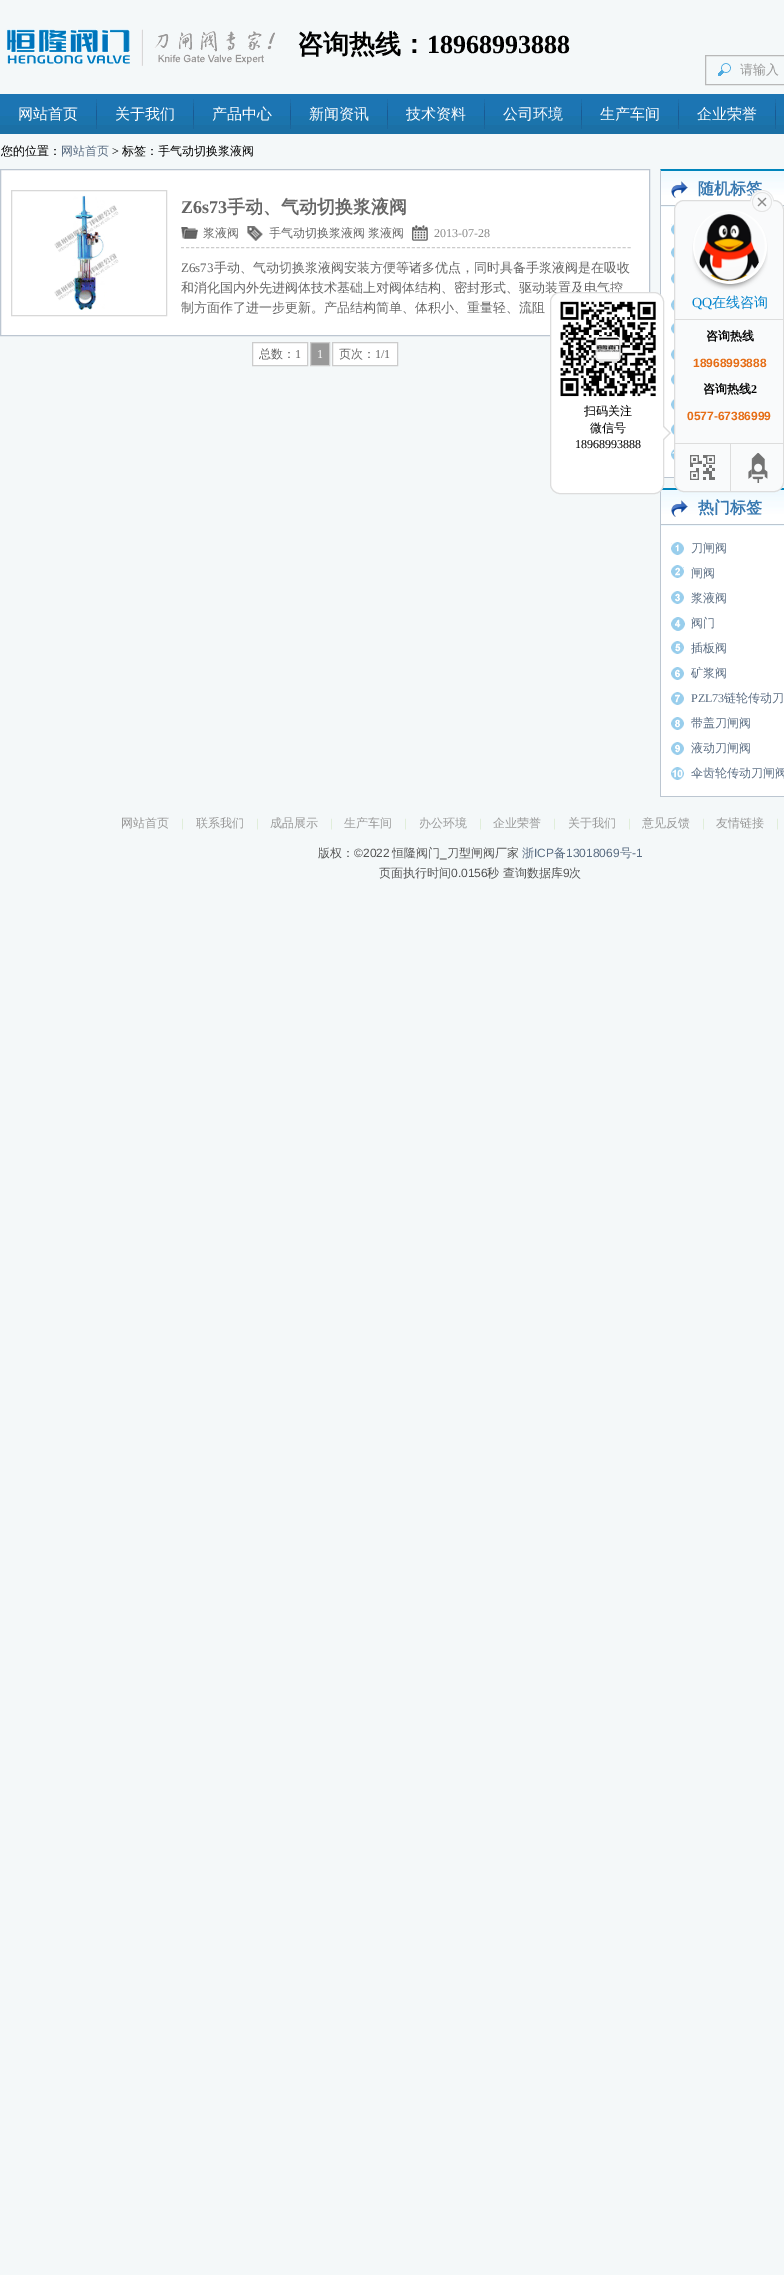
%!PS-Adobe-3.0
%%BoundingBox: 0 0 784 2275
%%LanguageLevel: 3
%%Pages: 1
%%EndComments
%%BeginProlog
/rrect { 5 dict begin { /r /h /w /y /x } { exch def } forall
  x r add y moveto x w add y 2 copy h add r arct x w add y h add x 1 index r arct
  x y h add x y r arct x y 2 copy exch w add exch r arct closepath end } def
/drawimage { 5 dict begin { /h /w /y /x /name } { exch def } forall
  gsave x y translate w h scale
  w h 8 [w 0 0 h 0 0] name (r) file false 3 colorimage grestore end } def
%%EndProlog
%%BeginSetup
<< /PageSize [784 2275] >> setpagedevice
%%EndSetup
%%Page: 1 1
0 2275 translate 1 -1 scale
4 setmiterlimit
0.957 0.973 0.976 setrgbcolor
0 0 784 2275 rectfill
(images/1.raw) 7 29 268 37 drawimage
(images/2.raw) 718 63 13 13 drawimage
0.722 setgray
705.5 55.5 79 29 rectstroke
(images/3.raw) 0 94 784 40 drawimage
(images/4.raw) 96 99 1 30 drawimage
(images/4.raw) 193 99 1 30 drawimage
(images/4.raw) 290 99 1 30 drawimage
(images/4.raw) 387 99 1 30 drawimage
(images/4.raw) 484 99 1 30 drawimage
(images/4.raw) 581 99 1 30 drawimage
(images/4.raw) 678 99 1 30 drawimage
(images/4.raw) 775 99 1 30 drawimage
1 setgray
newpath 0.5 169.5 moveto 649.5 169.5 lineto 649.5 335.5 lineto 0.5 335.5 lineto closepath gsave fill grestore
0.737 0.776 0.82 setrgbcolor
stroke
0.847 setgray
11.5 190.5 155 125 rectstroke
(images/5.raw) 54 195 65 115 drawimage
0.8 setgray
[3 2.02] 0 setdash
newpath 181 247.5 moveto 631 247.5 lineto stroke
(images/6.raw) 181 227 17 12 drawimage
(images/7.raw) 247 226 16 15 drawimage
(images/8.raw) 412 225 16 16 drawimage
1 setgray
newpath 252.5 342.5 moveto 307.5 342.5 lineto 307.5 365.5 lineto 252.5 365.5 lineto closepath gsave fill grestore
0.8 setgray
[] 0 setdash
stroke
0.6 setgray
newpath 310.5 342.5 moveto 329.5 342.5 lineto 329.5 365.5 lineto 310.5 365.5 lineto closepath gsave fill grestore
0.8 setgray
stroke
1 setgray
newpath 332.5 342.5 moveto 397.5 342.5 lineto 397.5 365.5 lineto 332.5 365.5 lineto closepath gsave fill grestore
0.8 setgray
stroke
1 setgray
661 207 123 270 rectfill
0 0.522 0.737 setrgbcolor
newpath 660 169 moveto 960 169 lineto 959 171 lineto 661 171 lineto closepath fill
0.737 0.776 0.82 setrgbcolor
660 477 14 1 rectfill
newpath 660 478 moveto 660 169 lineto 661 171 lineto 661 477 lineto closepath fill
(images/9.raw) 661 171 123 36 drawimage
(images/10.raw) 671 224 3 236 drawimage
1 setgray
661 526 123 270 rectfill
0 0.522 0.737 setrgbcolor
newpath 660 488 moveto 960 488 lineto 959 490 lineto 661 490 lineto closepath fill
0.737 0.776 0.82 setrgbcolor
660 796 124 1 rectfill
newpath 660 797 moveto 660 488 lineto 661 490 lineto 661 796 lineto closepath fill
(images/9.raw) 661 490 123 36 drawimage
(images/11.raw) 671 542 14 238 drawimage
0.976 0.98 0.984 setrgbcolor
674.5 200.5 109 291 9.5 rrect gsave fill grestore
0.867 setgray
stroke
(images/14.raw) 699 214 60 67 drawimage
(images/13.raw) 692 210 76 80 drawimage
675 319 109 1 rectfill
675 443 109 1 rectfill
(images/15.raw) 690 455 25 25 drawimage
730 444 1 47 rectfill
(images/17.raw) 748 453 20 30 drawimage
/WenQuanYiZenHei-Bold [26 0 0 -26 0 0] selectfont
0 setgray
297 53 moveto (咨询热线：) show
/LiberationSerif-Bold [26 0 0 -26 0 0] selectfont
427 53 moveto (18968993888) show
/WenQuanYiZenHei-Medium [13 0 0 -13 0 0] selectfont
0.6 setgray
740 74 moveto (请输入) show
/WenQuanYiZenHei-Medium [15 0 0 -15 0 0] selectfont
1 setgray
18 119 moveto (网站首页) show
115 119 moveto (关于我们) show
212 119 moveto (产品中心) show
309 119 moveto (新闻资讯) show
406 119 moveto (技术资料) show
503 119 moveto (公司环境) show
600 119 moveto (生产车间) show
697 119 moveto (企业荣誉) show
/WenQuanYiZenHei-Medium [12 0 0 -12 0 0] selectfont
0 setgray
1 155 moveto (您的位置：) show
0.349 0.424 0.51 setrgbcolor
61 155 moveto (网站首页) show
/LiberationSerif-Regular [12 0 0 -12 0 0] selectfont
0 setgray
112 155 moveto (>) show
/WenQuanYiZenHei-Medium [12 0 0 -12 0 0] selectfont
122 155 moveto (标签：手气动切换浆液阀) show
/LiberationSerif-Bold [18 0 0 -18 0 0] selectfont
0.4 setgray
181 213 moveto (Z6s73) show
/WenQuanYiZenHei-Bold [18 0 0 -18 0 0] selectfont
227 213 moveto (手动、气动切换浆液阀) show
/WenQuanYiZenHei-Medium [12 0 0 -12 0 0] selectfont
203 237 moveto (浆液阀) show
269 237 moveto (手气动切换浆液阀) show
368 237 moveto (浆液阀) show
/LiberationSerif-Regular [12 0 0 -12 0 0] selectfont
0.533 setgray
434 237 moveto (2013-07-28) show
/LiberationSerif-Regular [13 0 0 -13 0 0] selectfont
0.4 setgray
181 272 moveto (Z6s73) show
/WenQuanYiZenHei-Medium [13 0 0 -13 0 0] selectfont
214 272 moveto (手动、气动切换浆液阀安装方便等诸多优点，同时具备手浆液阀是在吸收) show
181 292 moveto (和消化国内外先进阀体技术基础上对阀体结构、密封形式、驱动装置及电气控) show
181 312 moveto (制方面作了进一步更新。产品结构简单、体积小、重量轻、流阻) show
/WenQuanYiZenHei-Medium [12 0 0 -12 0 0] selectfont
259 358 moveto (总数：) show
/LiberationSerif-Regular [12 0 0 -12 0 0] selectfont
295 358 moveto (1) show
1 setgray
317 358 moveto (1) show
/WenQuanYiZenHei-Medium [12 0 0 -12 0 0] selectfont
0.4 setgray
339 358 moveto (页次：) show
/LiberationSerif-Regular [12 0 0 -12 0 0] selectfont
375 358 moveto (1/1) show
/WenQuanYiZenHei-Bold [16 0 0 -16 0 0] selectfont
0.216 0.471 0.69 setrgbcolor
698 194 moveto (随机标签) show
698 513 moveto (热门标签) show
/WenQuanYiZenHei-Medium [12 0 0 -12 0 0] selectfont
0.349 0.424 0.51 setrgbcolor
691 552 moveto (刀闸阀) show
691 577 moveto (闸阀) show
691 602 moveto (浆液阀) show
691 627 moveto (阀门) show
691 652 moveto (插板阀) show
691 677 moveto (矿浆阀) show
/LiberationSerif-Regular [12 0 0 -12 0 0] selectfont
691 702 moveto (PZL73) show
/WenQuanYiZenHei-Medium [12 0 0 -12 0 0] selectfont
724 702 moveto (链轮传动刀) show
691 727 moveto (带盖刀闸阀) show
691 752 moveto (液动刀闸阀) show
691 777 moveto (伞齿轮传动刀闸阀) show
(images/12.raw) 750 190 24 22 drawimage
/LiberationSerif-Regular [14 0 0 -14 0 0] selectfont
0.016 0.518 0.804 setrgbcolor
692 307 moveto (QQ) show
/WenQuanYiZenHei-Medium [14 0 0 -14 0 0] selectfont
712 307 moveto (在线咨询) show
/WenQuanYiZenHei-Bold [12 0 0 -12 0 0] selectfont
0 setgray
706 340 moveto (咨询热线) show
/LiberationSans-Bold [12 0 0 -12 0 0] selectfont
0.902 0.427 0.082 setrgbcolor
693 367 moveto (18968993888) show
/WenQuanYiZenHei-Bold [12 0 0 -12 0 0] selectfont
0 setgray
703 393 moveto (咨询热线) show
/LiberationSerif-Bold [12 0 0 -12 0 0] selectfont
751 393 moveto (2) show
/LiberationSans-Bold [12 0 0 -12 0 0] selectfont
0.902 0.427 0.082 setrgbcolor
687 420 moveto (0577-67386999) show
1 setgray
550.5 292.5 113 201 9.5 rrect gsave fill grestore
0.867 setgray
stroke
(images/16.raw) 560 301 96 96 drawimage
/WenQuanYiZenHei-Medium [12 0 0 -12 0 0] selectfont
0 setgray
584 415 moveto (扫码关注) show
590 432 moveto (微信号) show
/LiberationSerif-Regular [12 0 0 -12 0 0] selectfont
575 448 moveto (18968993888) show
0.867 setgray
newpath 663 441 moveto 663 425 lineto 671 433 lineto closepath fill
1 setgray
newpath 663 439 moveto 663 427 lineto 669 433 lineto closepath fill
/WenQuanYiZenHei-Medium [12 0 0 -12 0 0] selectfont
0.6 setgray
121 827 moveto (网站首页) show
/LiberationSerif-Regular [12 0 0 -12 0 0] selectfont
0.816 0.902 0.753 setrgbcolor
181 827 moveto (|) show
/WenQuanYiZenHei-Medium [12 0 0 -12 0 0] selectfont
0.6 setgray
196 827 moveto (联系我们) show
/LiberationSerif-Regular [12 0 0 -12 0 0] selectfont
0.816 0.902 0.753 setrgbcolor
256 827 moveto (|) show
/WenQuanYiZenHei-Medium [12 0 0 -12 0 0] selectfont
0.6 setgray
270 827 moveto (成品展示) show
/LiberationSerif-Regular [12 0 0 -12 0 0] selectfont
0.816 0.902 0.753 setrgbcolor
330 827 moveto (|) show
/WenQuanYiZenHei-Medium [12 0 0 -12 0 0] selectfont
0.6 setgray
344 827 moveto (生产车间) show
/LiberationSerif-Regular [12 0 0 -12 0 0] selectfont
0.816 0.902 0.753 setrgbcolor
404 827 moveto (|) show
/WenQuanYiZenHei-Medium [12 0 0 -12 0 0] selectfont
0.6 setgray
419 827 moveto (办公环境) show
/LiberationSerif-Regular [12 0 0 -12 0 0] selectfont
0.816 0.902 0.753 setrgbcolor
479 827 moveto (|) show
/WenQuanYiZenHei-Medium [12 0 0 -12 0 0] selectfont
0.6 setgray
493 827 moveto (企业荣誉) show
/LiberationSerif-Regular [12 0 0 -12 0 0] selectfont
0.816 0.902 0.753 setrgbcolor
553 827 moveto (|) show
/WenQuanYiZenHei-Medium [12 0 0 -12 0 0] selectfont
0.6 setgray
568 827 moveto (关于我们) show
/LiberationSerif-Regular [12 0 0 -12 0 0] selectfont
0.816 0.902 0.753 setrgbcolor
628 827 moveto (|) show
/WenQuanYiZenHei-Medium [12 0 0 -12 0 0] selectfont
0.6 setgray
642 827 moveto (意见反馈) show
/LiberationSerif-Regular [12 0 0 -12 0 0] selectfont
0.816 0.902 0.753 setrgbcolor
702 827 moveto (|) show
/WenQuanYiZenHei-Medium [12 0 0 -12 0 0] selectfont
0.6 setgray
716 827 moveto (友情链接) show
/LiberationSerif-Regular [12 0 0 -12 0 0] selectfont
0.816 0.902 0.753 setrgbcolor
776 827 moveto (|) show
/WenQuanYiZenHei-Medium [12 0 0 -12 0 0] selectfont
0.333 setgray
318 857 moveto (版权：) show
/LiberationSans-Regular [12 0 0 -12 0 0] selectfont
354 857 moveto (©2022) show
/WenQuanYiZenHei-Medium [12 0 0 -12 0 0] selectfont
392 857 moveto (恒隆阀门) show
0.349 0.424 0.51 setrgbcolor
522 857 moveto (浙) show
/LiberationSans-Regular [12 0 0 -12 0 0] selectfont
534 857 moveto (ICP) show
/WenQuanYiZenHei-Medium [12 0 0 -12 0 0] selectfont
554 857 moveto (备) show
/LiberationSans-Regular [12 0 0 -12 0 0] selectfont
566 857 moveto (13018069) show
/WenQuanYiZenHei-Medium [12 0 0 -12 0 0] selectfont
620 857 moveto (号) show
/LiberationSans-Regular [12 0 0 -12 0 0] selectfont
632 857 moveto (-1) show
0.333 setgray
440 857 moveto (_) show
/WenQuanYiZenHei-Medium [12 0 0 -12 0 0] selectfont
447 857 moveto (刀型闸阀厂家) show
379 877 moveto (页面执行时间) show
/LiberationSans-Regular [12 0 0 -12 0 0] selectfont
451 877 moveto (0.0156) show
/WenQuanYiZenHei-Medium [12 0 0 -12 0 0] selectfont
487 877 moveto (秒 查询数据库) show
/LiberationSans-Regular [12 0 0 -12 0 0] selectfont
563 877 moveto (9) show
/WenQuanYiZenHei-Medium [12 0 0 -12 0 0] selectfont
569 877 moveto (次) show
showpage
%%EOF
